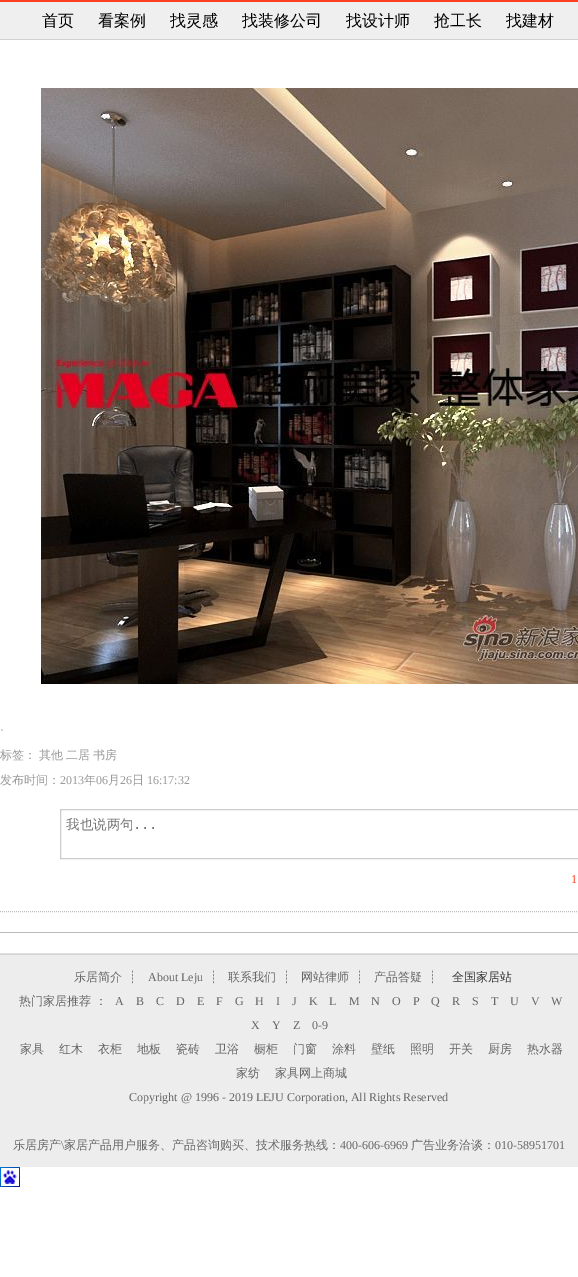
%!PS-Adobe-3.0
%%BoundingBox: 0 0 578 1277
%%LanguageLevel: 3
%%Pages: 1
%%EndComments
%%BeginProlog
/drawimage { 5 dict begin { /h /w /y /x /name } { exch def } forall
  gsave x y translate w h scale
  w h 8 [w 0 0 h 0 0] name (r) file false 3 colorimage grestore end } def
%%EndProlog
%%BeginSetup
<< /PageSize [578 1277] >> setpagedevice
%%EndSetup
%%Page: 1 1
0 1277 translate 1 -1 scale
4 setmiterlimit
1 setgray
0 0 578 1277 rectfill
0.937 setgray
0 2 578 37 rectfill
0.992 0.251 0.133 setrgbcolor
0 0 578 2 rectfill
0.824 setgray
0 39 578 1 rectfill
(images/1.raw) 41 88 537 596 drawimage
0.8 setgray
60.5 809.5 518 49 rectstroke
0.737 setgray
[1 1] 0 setdash
newpath 0 911.5 moveto 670 911.5 lineto stroke
0 932 578 1 rectfill
0.878 setgray
0 953 578 1 rectfill
0.929 setgray
0 955 578 212 rectfill
0.824 setgray
0 954 578 1 rectfill
(images/2.raw) 0 1167 20 20 drawimage
/WenQuanYiZenHei-Medium [16 0 0 -16 0 0] selectfont
0.004 0 0 setrgbcolor
42 26 moveto (首页) show
98 26 moveto (看案例) show
170 26 moveto (找灵感) show
242 26 moveto (找装修公司) show
346 26 moveto (找设计师) show
434 26 moveto (抢工长) show
506 26 moveto (找建材) show
/LiberationSerif-Regular [12 0 0 -12 0 0] selectfont
0.6 setgray
0 734 moveto (·) show
/WenQuanYiZenHei-Medium [12 0 0 -12 0 0] selectfont
0 759 moveto (标签：) show
39 759 moveto (其他) show
66 759 moveto (二居) show
93 759 moveto (书房) show
0 784 moveto (发布时间：) show
/LiberationSerif-Regular [12 0 0 -12 0 0] selectfont
60 784 moveto (2013) show
/WenQuanYiZenHei-Medium [12 0 0 -12 0 0] selectfont
84 784 moveto (年) show
/LiberationSerif-Regular [12 0 0 -12 0 0] selectfont
96 784 moveto (06) show
/WenQuanYiZenHei-Medium [12 0 0 -12 0 0] selectfont
108 784 moveto (月) show
/LiberationSerif-Regular [12 0 0 -12 0 0] selectfont
120 784 moveto (26) show
/WenQuanYiZenHei-Medium [12 0 0 -12 0 0] selectfont
132 784 moveto (日) show
/LiberationSerif-Regular [12 0 0 -12 0 0] selectfont
147 784 moveto (16:17:32) show
/WenQuanYiZenHei-Medium [13.5 0 0 -13.5 0 0] selectfont
0.459 setgray
66 829 moveto (我也说两句) show
/DejaVuSansMono-Regular [13.5 0 0 -13.5 0 0] selectfont
133 829 moveto (...) show
/LiberationSerif-Regular [12 0 0 -12 0 0] selectfont
0.992 0.251 0.133 setrgbcolor
571 883 moveto (1) show
/WenQuanYiZenHei-Medium [12 0 0 -12 0 0] selectfont
0.4 setgray
74 981 moveto (乐居简介) show
/DejaVuSans-Regular [12 0 0 -12 0 0] selectfont
129 981 moveto (┊) show
/LiberationSerif-Regular [12 0 0 -12 0 0] selectfont
148 981 moveto (About Leju) show
/DejaVuSans-Regular [12 0 0 -12 0 0] selectfont
210 981 moveto (┊) show
/WenQuanYiZenHei-Medium [12 0 0 -12 0 0] selectfont
228 981 moveto (联系我们) show
/DejaVuSans-Regular [12 0 0 -12 0 0] selectfont
283 981 moveto (┊) show
/WenQuanYiZenHei-Medium [12 0 0 -12 0 0] selectfont
301 981 moveto (网站律师) show
/DejaVuSans-Regular [12 0 0 -12 0 0] selectfont
356 981 moveto (┊) show
/WenQuanYiZenHei-Medium [12 0 0 -12 0 0] selectfont
374 981 moveto (产品答疑) show
/DejaVuSans-Regular [12 0 0 -12 0 0] selectfont
429 981 moveto (┊) show
/WenQuanYiZenHei-Medium [12 0 0 -12 0 0] selectfont
0.2 setgray
452 981 moveto (全国家居站) show
0.4 setgray
19 1005 moveto (热门家居推荐) show
95 1005 moveto (：) show
/LiberationSerif-Regular [12 0 0 -12 0 0] selectfont
115 1005 moveto (A) show
136 1005 moveto (B) show
156 1005 moveto (C) show
176 1005 moveto (D) show
197 1005 moveto (E) show
216 1005 moveto (F) show
235 1005 moveto (G) show
255 1005 moveto (H) show
276 1005 moveto (I) show
292 1005 moveto (J) show
309 1005 moveto (K) show
329 1005 moveto (L) show
349 1005 moveto (M) show
371 1005 moveto (N) show
392 1005 moveto (O) show
413 1005 moveto (P) show
431 1005 moveto (Q) show
452 1005 moveto (R) show
472 1005 moveto (S) show
491 1005 moveto (T) show
510 1005 moveto (U) show
531 1005 moveto (V) show
551 1005 moveto (W) show
251 1029 moveto (X) show
272 1029 moveto (Y) show
293 1029 moveto (Z) show
312 1029 moveto (0-9) show
/WenQuanYiZenHei-Medium [12 0 0 -12 0 0] selectfont
20 1053 moveto (家具) show
59 1053 moveto (红木) show
98 1053 moveto (衣柜) show
137 1053 moveto (地板) show
176 1053 moveto (瓷砖) show
215 1053 moveto (卫浴) show
254 1053 moveto (橱柜) show
293 1053 moveto (门窗) show
332 1053 moveto (涂料) show
371 1053 moveto (壁纸) show
410 1053 moveto (照明) show
449 1053 moveto (开关) show
488 1053 moveto (厨房) show
527 1053 moveto (热水器) show
236 1077 moveto (家纺) show
275 1077 moveto (家具网上商城) show
/LiberationSerif-Regular [12 0 0 -12 0 0] selectfont
129 1101 moveto (Copyright @ 1996 - 2019 LEJU Corporation, All Rights Reserved) show
/WenQuanYiZenHei-Medium [12 0 0 -12 0 0] selectfont
13 1149 moveto (乐居房产) show
/LiberationSerif-Regular [12 0 0 -12 0 0] selectfont
61 1149 moveto (\\) show
/WenQuanYiZenHei-Medium [12 0 0 -12 0 0] selectfont
64 1149 moveto (家居产品用户服务、产品咨询购买、技术服务热线：) show
/LiberationSerif-Regular [12 0 0 -12 0 0] selectfont
340 1149 moveto (400-606-6969) show
/WenQuanYiZenHei-Medium [12 0 0 -12 0 0] selectfont
411 1149 moveto (广告业务洽谈：) show
/LiberationSerif-Regular [12 0 0 -12 0 0] selectfont
495 1149 moveto (010-58951701) show
showpage
%%EOF
